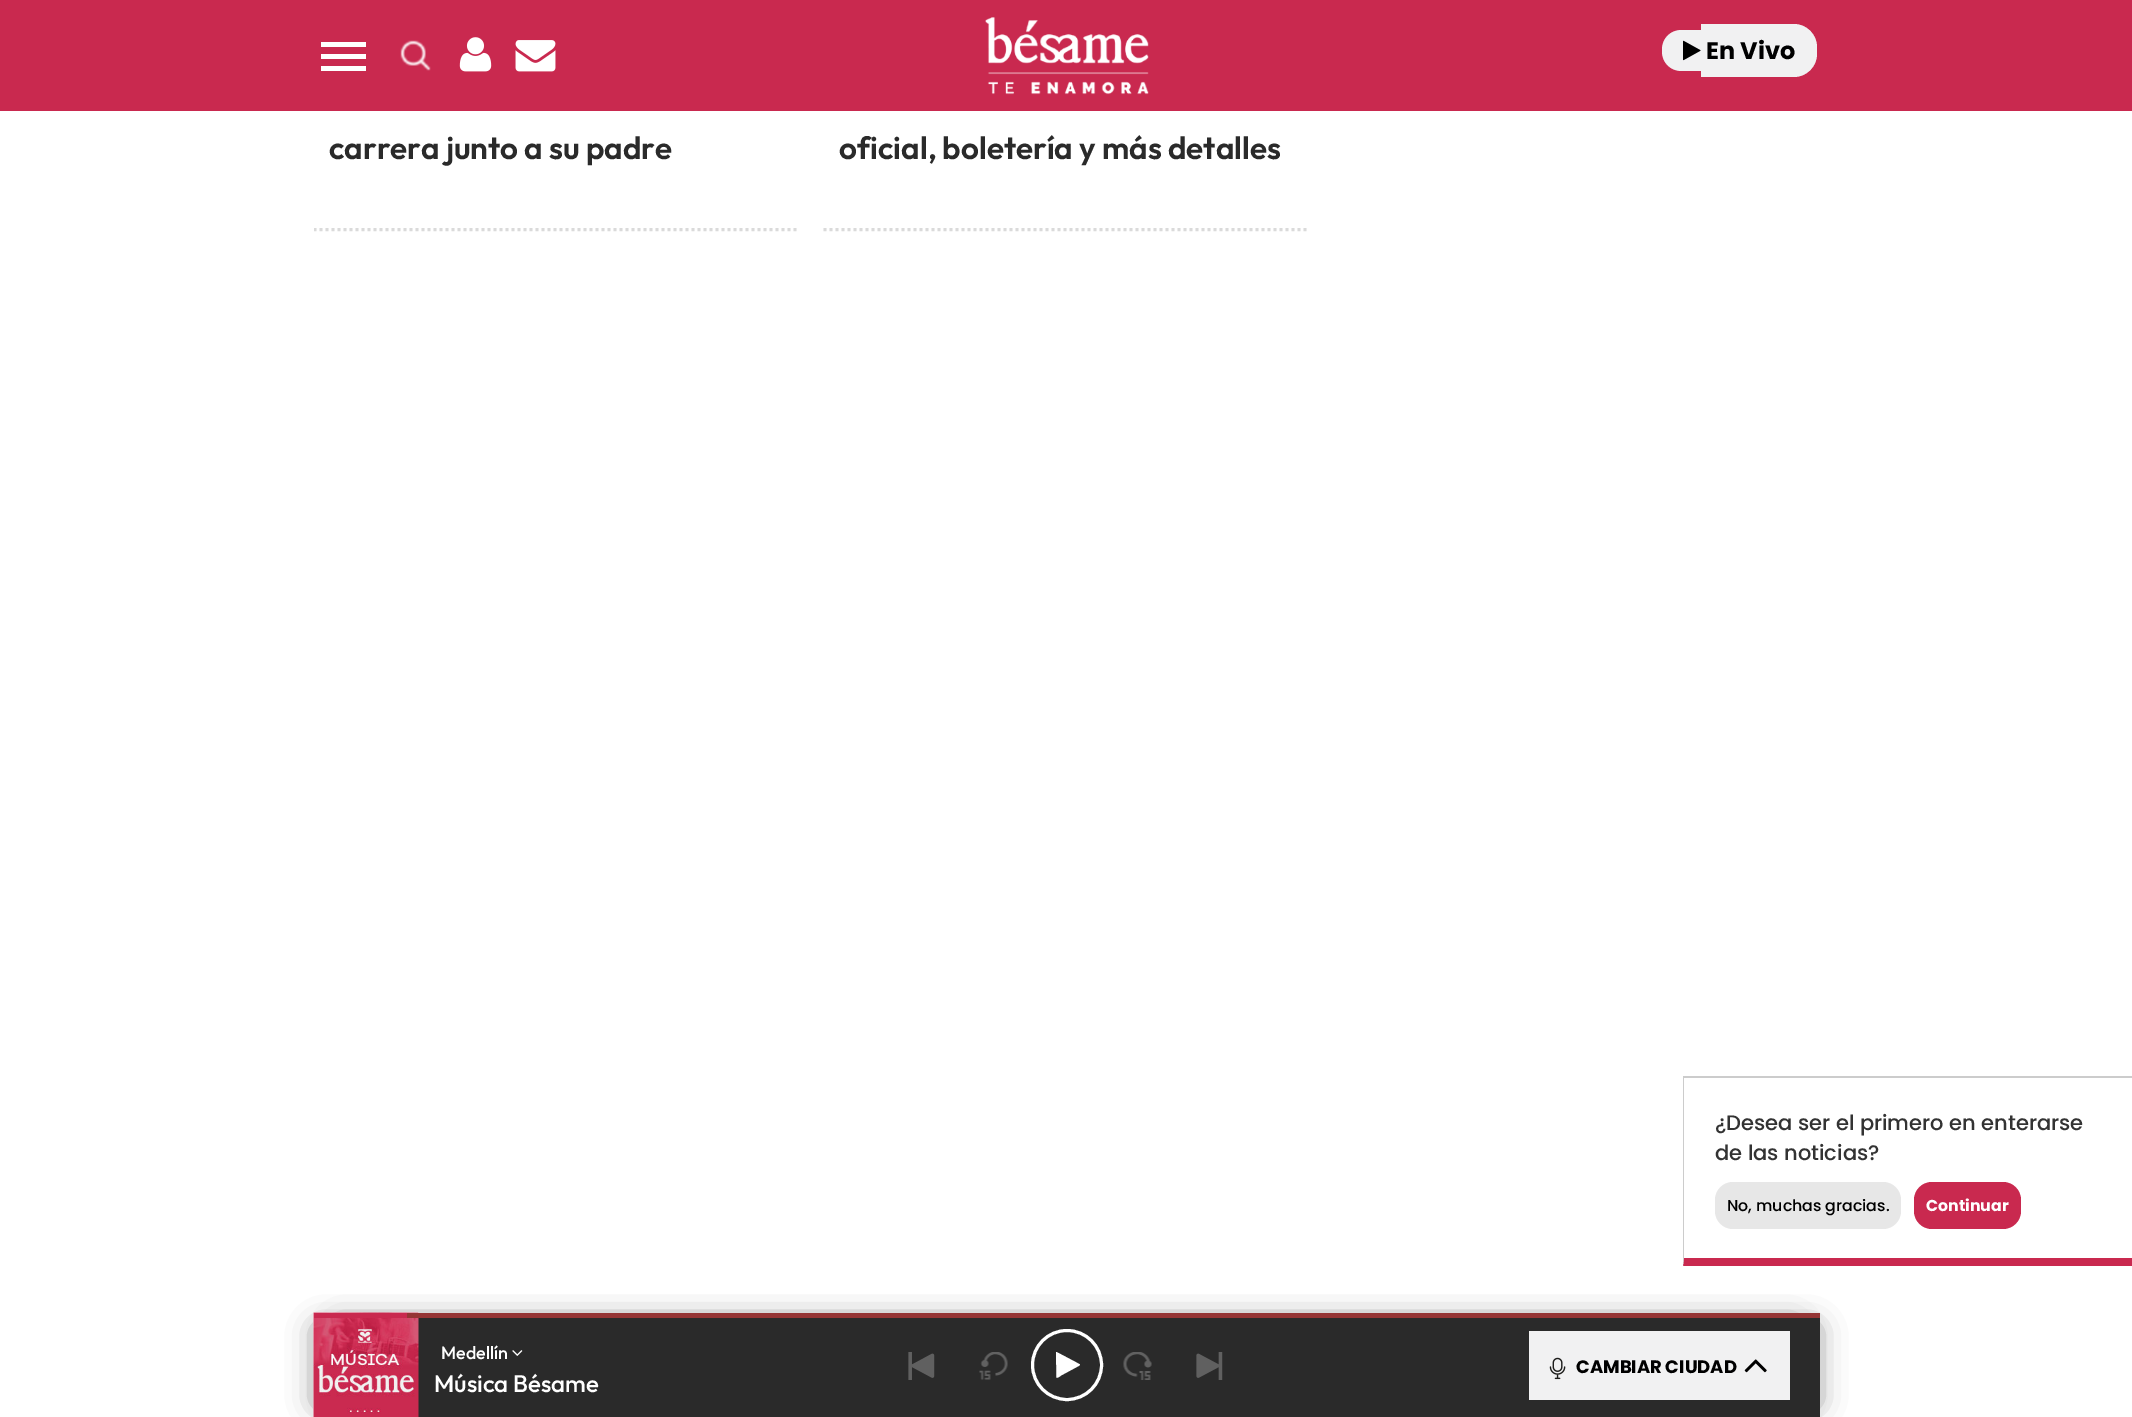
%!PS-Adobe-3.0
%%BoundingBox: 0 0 2132 1417
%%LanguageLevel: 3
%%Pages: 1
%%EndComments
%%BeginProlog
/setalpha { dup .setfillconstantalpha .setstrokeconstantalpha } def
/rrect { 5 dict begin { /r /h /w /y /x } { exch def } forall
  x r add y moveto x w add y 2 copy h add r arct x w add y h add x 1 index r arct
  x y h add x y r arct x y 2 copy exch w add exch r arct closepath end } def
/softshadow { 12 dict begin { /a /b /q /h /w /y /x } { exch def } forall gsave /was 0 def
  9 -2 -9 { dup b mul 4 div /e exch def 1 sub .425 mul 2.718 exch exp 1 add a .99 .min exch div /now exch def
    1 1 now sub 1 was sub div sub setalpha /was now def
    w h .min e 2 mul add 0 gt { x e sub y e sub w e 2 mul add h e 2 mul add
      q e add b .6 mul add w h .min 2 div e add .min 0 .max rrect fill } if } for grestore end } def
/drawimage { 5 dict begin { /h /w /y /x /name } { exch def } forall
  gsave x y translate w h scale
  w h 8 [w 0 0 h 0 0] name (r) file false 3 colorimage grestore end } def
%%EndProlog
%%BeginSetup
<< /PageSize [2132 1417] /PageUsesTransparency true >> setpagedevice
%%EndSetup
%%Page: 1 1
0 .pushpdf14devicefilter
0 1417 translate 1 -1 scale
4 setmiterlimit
1 setgray
0 0 2132 1417 rectfill
0.788 0.161 0.31 setrgbcolor
0 0 2132 111 rectfill
1 setgray
321 54 45 5 rectfill
321 42 45 5 rectfill
321 66 45 5 rectfill
(images/1.raw) 400 40 31 31 drawimage
(images/2.raw) 459 37 33 35 drawimage
(images/3.raw) 515 40 41 32 drawimage
(images/4.raw) 985 17 164 78 drawimage
0.945 0.945 0.949 setrgbcolor
newpath 1681.5 30 moveto 1701 30 lineto 1701 71 lineto 1681.5 71 lineto 1670.5 71 1662 62.5 1662 51.5 curveto 1662 49.5 lineto 1662 38.5 1670.5 30 1681.5 30 curveto closepath fill
newpath 1701 24 moveto 1794 24 lineto 1806.5 24 1817 34.5 1817 47 curveto 1817 54 lineto 1817 66.5 1806.5 77 1794 77 curveto 1701 77 lineto closepath fill
(images/5.raw) 1683 40 18 21 drawimage
gsave
314 0 996 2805 rectclip
0.855 setgray
3 setlinewidth
[3 3] 0 setdash
newpath 313.5 229.5 moveto 799.5 229.5 lineto stroke
grestore
0.855 setgray
3 setlinewidth
[3 3] 0 setdash
newpath 823.5 229.5 moveto 1309.5 229.5 lineto stroke
0.8 setgray
1683 1076 449 2 rectfill
0.788 0.161 0.31 setrgbcolor
newpath 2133 1266 moveto 1683 1266 lineto 1684 1258 lineto 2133 1258 lineto closepath fill
0.8 setgray
newpath 1683 1266 moveto 1683 1076 lineto 1684 1077 lineto 1684 1258 lineto closepath fill
0.906 setgray
1715 1182 186 47 18 rrect fill
0.788 0.161 0.31 setrgbcolor
1914 1182 107 47 18 rrect fill
0 setgray
339 1328 1476 75 0 15 0.5 softshadow
318 1328 1476 75 0 15 0.5 softshadow
0.165 setgray
418 1318 1402 99 rectfill
(images/6.raw) 313 1312 106 105 drawimage
0.584 0.208 0.208 setrgbcolor
407 1313 1413 5 rectfill
0.788 0.161 0.31 setrgbcolor
314 1313 93 5 rectfill
(images/7.raw) 512 1350 11 6 drawimage
(images/8.raw) 908 1352 27 28 drawimage
(images/9.raw) 979 1352 29 28 drawimage
1 setgray
[] 0 setdash
newpath 1067 1365 34.5 0 360 arc closepath stroke
newpath 1079.5 1365.5 moveto 1061 1375.5 lineto 1060.5 1376 1057 1378.5 1056.5 1377.5 curveto 1056 1352 lineto 1056.5 1352 lineto 1075.5 1362 lineto 1080 1364.5 lineto closepath fill
(images/10.raw) 1123 1352 29 28 drawimage
(images/11.raw) 1196 1352 27 28 drawimage
0.945 0.945 0.949 setrgbcolor
1529 1331 261 69 rectfill
(images/12.raw) 1549 1357 17 23 drawimage
(images/13.raw) 1744 1359 23 14 drawimage
/Poppins-Bold [24 0 0 -24 0 0] selectfont
0 setgray
1706 59 moveto (En Vivo) show
/Outfit-SemiBold [31.5 0 0 -31.5 0 0] selectfont
0.165 setgray
329 159 moveto (carrera junto a su padre) show
839 159 moveto (oficial, boletería y más detalles) show
/Poppins-Medium [21 0 0 -21 0 0] selectfont
0.2 setgray
1715 1130 moveto (¿Desea ser el primero en enterarse) show
1715 1160 moveto (de las noticias?) show
/Poppins-Medium [15.75 0 0 -15.75 0 0] selectfont
0 setgray
1727 1211 moveto (No, muchas gracias.) show
/Poppins-Bold [15.75 0 0 -15.75 0 0] selectfont
1 setgray
1926 1211 moveto (Continuar) show
/Outfit-Medium [18 0 0 -18 0 0] selectfont
441 1359 moveto (Medellín) show
/Outfit-Medium [24 0 0 -24 0 0] selectfont
434 1392 moveto (Música Bésame) show
/Poppins-Bold [18 0 0 -18 0 0] selectfont
0 setgray
1576 1373 moveto (CAMBIAR CIUDAD) show
.poppdf14devicefilter showpage
%%EOF
